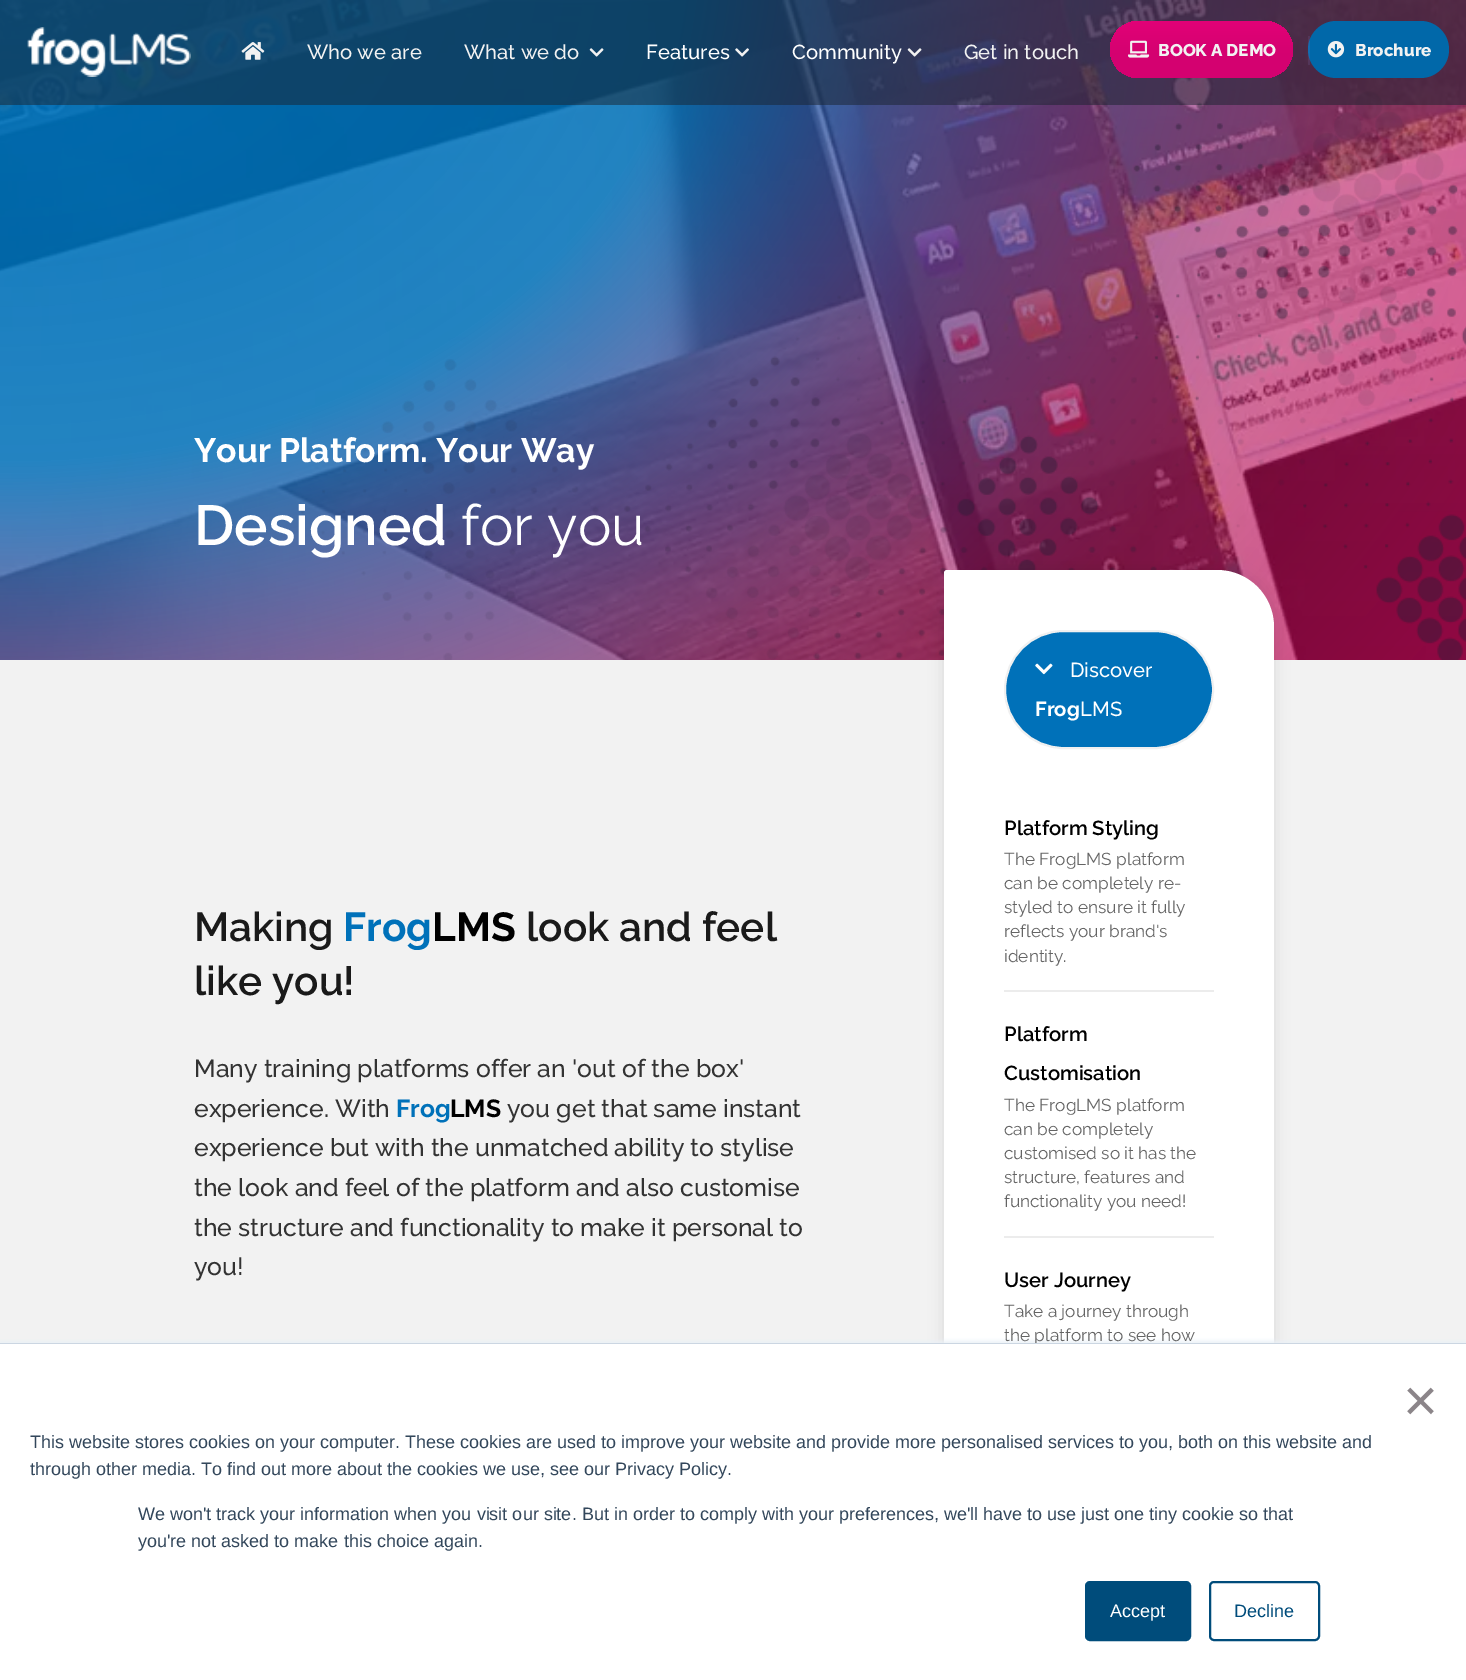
%!PS-Adobe-3.0
%%BoundingBox: 0 0 1466 1680
%%LanguageLevel: 3
%%Pages: 1
%%EndComments
%%BeginProlog
/setalpha { dup .setfillconstantalpha .setstrokeconstantalpha } def
/rrect { 5 dict begin { /r /h /w /y /x } { exch def } forall
  x r add y moveto x w add y 2 copy h add r arct x w add y h add x 1 index r arct
  x y h add x y r arct x y 2 copy exch w add exch r arct closepath end } def
/softshadow { 12 dict begin { /a /b /q /h /w /y /x } { exch def } forall gsave /was 0 def
  9 -2 -9 { dup b mul 4 div /e exch def 1 sub .425 mul 2.718 exch exp 1 add a .99 .min exch div /now exch def
    1 1 now sub 1 was sub div sub setalpha /was now def
    w h .min e 2 mul add 0 gt { x e sub y e sub w e 2 mul add h e 2 mul add
      q e add b .6 mul add w h .min 2 div e add .min 0 .max rrect fill } if } for grestore end } def
/drawimage { 5 dict begin { /h /w /y /x /name } { exch def } forall
  gsave x y translate w h scale
  w h 8 [w 0 0 h 0 0] name (r) file false 3 colorimage grestore end } def
%%EndProlog
%%BeginSetup
<< /PageSize [1466 1680] /PageUsesTransparency true >> setpagedevice
%%EndSetup
%%Page: 1 1
0 .pushpdf14devicefilter
0 1680 translate 1 -1 scale
4 setmiterlimit
1 setgray
0 0 1466 1680 rectfill
(images/8.raw) 0 0 1466 660 drawimage
(images/9.raw) 301 91 1165 569 drawimage
0.5 setalpha
0.098 0.133 0.176 setrgbcolor
0 0 1466 105 rectfill
1 setalpha
(images/1.raw) 27 27 164 50 drawimage
(images/2.raw) 241 42 24 18 drawimage
(images/3.raw) 589 48 15 9 drawimage
(images/4.raw) 735 48 14 9 drawimage
(images/5.raw) 907 48 15 9 drawimage
gsave 1110 21 183 57 28.5 rrect clip newpath
<< /ShadingType 2 /ColorSpace /DeviceRGB /Coords [1202 21 1202 78] /Extend [true true] /Function << /FunctionType 3 /Domain [0 1] /Functions [<< /FunctionType 2 /Domain [0 1] /C0 [0.886 0.004 0.467] /C1 [0.831 0.004 0.439] /N 1 >> << /FunctionType 2 /Domain [0 1] /C0 [0.831 0.004 0.439] /C1 [0.831 0.004 0.439] /N 1 >>] /Bounds [0.59] /Encode [0 1 0 1] >> >> shfill grestore
(images/6.raw) 1128 40 22 18 drawimage
0.004 0.408 0.663 setrgbcolor
1308 21 141 57 28.5 rrect fill
0.1 setalpha
0.608 0.608 1 setrgbcolor
1308 36 2 29 rectfill
1 setalpha
(images/7.raw) 1327 41 18 17 drawimage
0.949 setgray
0 660 1466 683 rectfill
0 setgray
944 570 330 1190 57 7.5 0.1 softshadow
1 setgray
newpath 947 570 moveto 1217 570 lineto 1248.5 570 1274 595.5 1274 627 curveto 1274 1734 lineto 1274 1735.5 1272.5 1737 1271 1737 curveto 1001 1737 lineto 969.5 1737 944 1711.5 944 1680 curveto 944 573 lineto 944 571.5 945.5 570 947 570 curveto closepath fill
0 0.443 0.725 setrgbcolor
1005 631 208 117 58.5 rrect gsave fill grestore
0.941 setgray
2 setlinewidth
stroke
(images/10.raw) 1035 663 18 12 drawimage
0.925 setgray
1004 990 210 2 rectfill
1004 1236 210 2 rectfill
0.918 0.941 0.965 setrgbcolor
0 1341 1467 338 0 2 1 softshadow
/Raleway-Medium [20.25 0 0 -20.25 0 0] selectfont
0.949 setgray
307 59 moveto (Who we are) show
464 59 moveto (What we do) show
1 setgray
646 59 moveto (Features) show
792 59 moveto (Community) show
0.949 setgray
964 59 moveto (Get in touch) show
/Raleway-ExtraBold [17 0 0 -17 0 0] selectfont
1158 56 moveto (BOOK A DEMO) show
1355 56 moveto (Brochure) show
/Raleway-Bold [33.75 0 0 -33.75 0 0] selectfont
1 setgray
194 462 moveto (Your Platform. Your Way) show
/Raleway-SemiBold [56.25 0 0 -56.25 0 0] selectfont
194 545 moveto (Designed) show
/Raleway-Regular [56.25 0 0 -56.25 0 0] selectfont
461 545 moveto (for you) show
/Raleway-SemiBold [40.5 0 0 -40.5 0 0] selectfont
0.102 setgray
194 941 moveto (Making) show
/Raleway-Bold [40.5 0 0 -40.5 0 0] selectfont
0 0.443 0.725 setrgbcolor
343 941 moveto (Frog) show
0 setgray
432 941 moveto (LMS) show
/Raleway-SemiBold [40.5 0 0 -40.5 0 0] selectfont
0.102 setgray
526 941 moveto (look and feel) show
194 995 moveto (like you!) show
/Raleway-Medium [24.75 0 0 -24.75 0 0] selectfont
0.2 setgray
194 1077 moveto (Many training platforms offer an 'out of the box') show
194 1117 moveto (experience. With) show
/Raleway-Bold [24.75 0 0 -24.75 0 0] selectfont
0 0.443 0.725 setrgbcolor
396 1117 moveto (Frog) show
0 setgray
450 1117 moveto (LMS) show
/Raleway-Medium [24.75 0 0 -24.75 0 0] selectfont
0.2 setgray
507 1117 moveto (you get that same instant) show
194 1156 moveto (experience but with the unmatched ability to stylise) show
194 1196 moveto (the look and feel of the platform and also customise) show
194 1236 moveto (the structure and functionality to make it personal to) show
194 1275 moveto (you!) show
/Raleway-Medium [20.25 0 0 -20.25 0 0] selectfont
1 setgray
1070 677 moveto (Discover) show
/Raleway-Bold [20.25 0 0 -20.25 0 0] selectfont
1035 716 moveto (Frog) show
/Raleway-Medium [20.25 0 0 -20.25 0 0] selectfont
1080 716 moveto (LMS) show
/Raleway-SemiBold [20.25 0 0 -20.25 0 0] selectfont
0 setgray
1004 835 moveto (Platform Styling) show
/Raleway-Regular [17.25 0 0 -17.25 0 0] selectfont
0.392 setgray
1004 865 moveto (The FrogLMS platform) show
1004 889 moveto (can be completely re-) show
1004 913 moveto (styled to ensure it fully) show
1004 937 moveto (reflects your brand's) show
1004 962 moveto (identity.) show
/Raleway-SemiBold [20.25 0 0 -20.25 0 0] selectfont
0 setgray
1004 1041 moveto (Platform) show
1004 1080 moveto (Customisation) show
/Raleway-Regular [17.25 0 0 -17.25 0 0] selectfont
0.392 setgray
1004 1111 moveto (The FrogLMS platform) show
1004 1135 moveto (can be completely) show
1004 1159 moveto (customised so it has the) show
1004 1183 moveto (structure, features and) show
1004 1207 moveto (functionality you need!) show
/Raleway-SemiBold [20.25 0 0 -20.25 0 0] selectfont
0 setgray
1004 1287 moveto (User Journey) show
/Raleway-Regular [17.25 0 0 -17.25 0 0] selectfont
0.392 setgray
1004 1317 moveto (Take a journey through) show
1004 1341 moveto (the platform to see how) show
0.796 0.839 0.886 setrgbcolor
0 1343 1466 1 rectfill
1 setgray
0 1344 1466 336 rectfill
/LiberationSans-Regular [60 0 0 -60 0 0] selectfont
0.545 0.522 0.537 setrgbcolor
1403 1421 moveto (×) show
/LiberationSans-Regular [18 0 0 -18 0 0] selectfont
0.2 0.278 0.357 setrgbcolor
30 1448 moveto (This website stores cookies on your computer. These cookies are used to improve your website and provide more personalised services to you, both on this website and) show
30 1475 moveto (through other media. To find out more about the cookies we use, see our Privacy Policy.) show
138 1520 moveto (We won't track your information when you visit our site. But in order to comply with your preferences, we'll have to use just one tiny cookie so that) show
138 1547 moveto (you're not asked to make this choice again.) show
0 0.298 0.482 setrgbcolor
1086 1582 104 58 4 rrect gsave fill grestore
stroke
1 setgray
1110 1617 moveto (Accept) show
0 0.298 0.482 setrgbcolor
1210 1582 109 58 4 rrect stroke
1234 1617 moveto (Decline) show
.poppdf14devicefilter showpage
%%EOF
